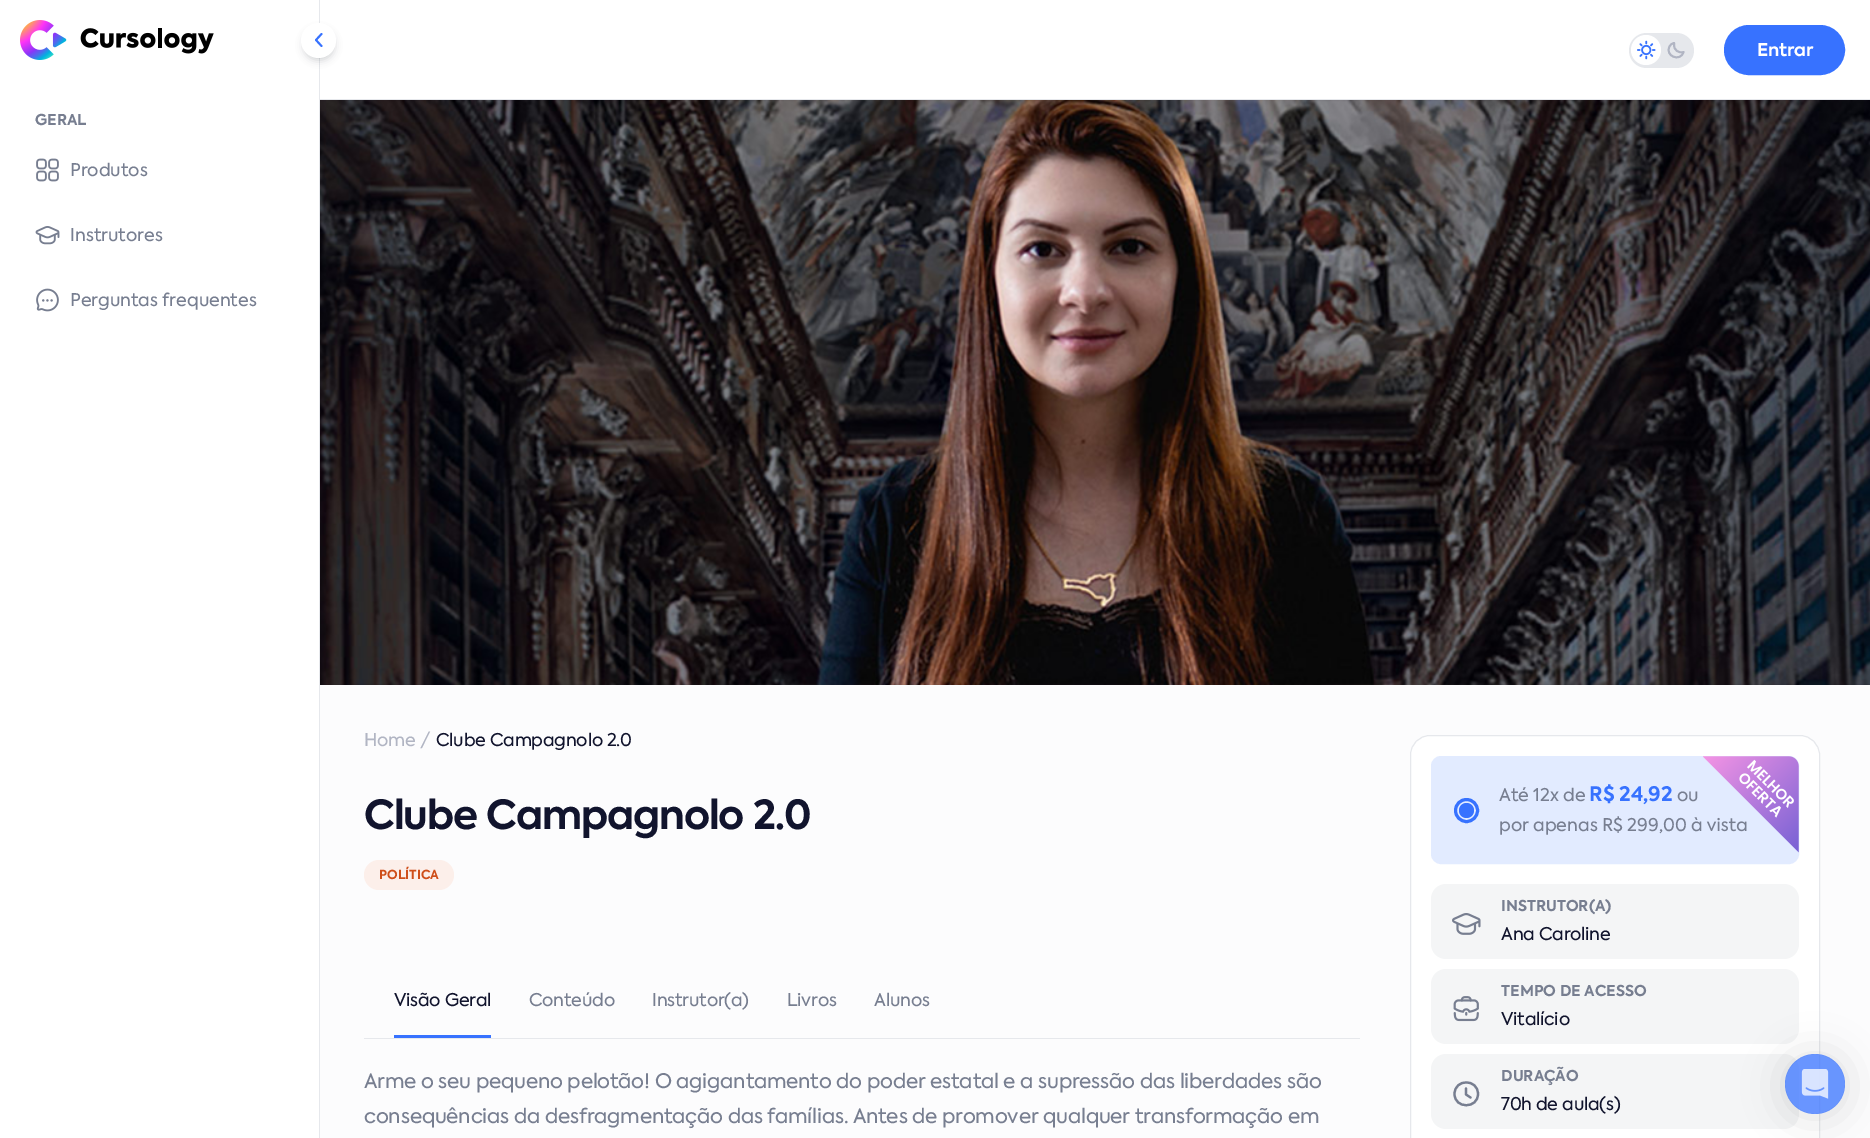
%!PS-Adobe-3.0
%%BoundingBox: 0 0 1870 1138
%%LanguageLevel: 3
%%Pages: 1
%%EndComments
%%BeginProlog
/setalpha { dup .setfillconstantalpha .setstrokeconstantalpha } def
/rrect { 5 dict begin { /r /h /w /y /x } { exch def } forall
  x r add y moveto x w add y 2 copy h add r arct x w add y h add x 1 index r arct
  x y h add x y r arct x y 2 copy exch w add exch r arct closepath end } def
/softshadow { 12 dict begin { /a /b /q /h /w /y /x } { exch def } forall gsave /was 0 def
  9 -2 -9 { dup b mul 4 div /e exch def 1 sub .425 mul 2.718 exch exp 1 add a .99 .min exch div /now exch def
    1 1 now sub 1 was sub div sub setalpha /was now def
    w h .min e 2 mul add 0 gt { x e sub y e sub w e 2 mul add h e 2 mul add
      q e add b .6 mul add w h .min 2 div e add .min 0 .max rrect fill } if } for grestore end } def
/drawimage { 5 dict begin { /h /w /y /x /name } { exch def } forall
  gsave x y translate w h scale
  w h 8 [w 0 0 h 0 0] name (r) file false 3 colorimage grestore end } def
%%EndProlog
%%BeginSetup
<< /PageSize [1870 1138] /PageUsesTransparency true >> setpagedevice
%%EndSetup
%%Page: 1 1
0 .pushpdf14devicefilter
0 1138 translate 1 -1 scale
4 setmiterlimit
1 setgray
0 0 1870 1138 rectfill
0.902 0.91 0.925 setrgbcolor
319 0 1 1138 rectfill
(images/1.raw) 20 20 194 40 drawimage
0.063 0.094 0.157 setrgbcolor
304 30 30 30 15 4 0.2 softshadow
1 setgray
newpath 318.5 40.5 17.5 0 360 arc closepath fill
0.216 0.447 1 setrgbcolor
1.9 setlinewidth
1 setlinecap
1 setlinejoin
newpath 321.5 46 moveto 316 40 lineto 321.5 34 lineto stroke
(images/2.raw) 36 158 23 24 drawimage
(images/3.raw) 35 226 25 19 drawimage
(images/4.raw) 36 288 23 24 drawimage
0.902 0.91 0.925 setrgbcolor
320 99 1550 1 rectfill
1629 33 65 35 17.5 rrect fill
1 setgray
newpath 1646 50 15 0 360 arc closepath fill
(images/5.raw) 1637 40 19 20 drawimage
0.694 0.71 0.765 setrgbcolor
newpath 1674 45 moveto 1674 50 1678.5 53.5 1683.5 52 curveto 1680.5 62.5 1664.5 56 1669.5 46.5 curveto 1670.5 44.5 1672 43.5 1674 43 curveto closepath stroke
0.216 0.447 1 setrgbcolor
1725.5 26.5 118 47 23.5 rrect gsave fill grestore
3 setlinewidth
0 setlinecap
0 setlinejoin
stroke
0.988 0.988 0.992 setrgbcolor
320 685 1550 453 rectfill
(images/6.raw) 320 100 1550 585 drawimage
0.988 0.937 0.918 setrgbcolor
364 860 90 30 15 rrect fill
0.216 0.447 1 setrgbcolor
394 1035 97 3 rectfill
0.902 0.91 0.925 setrgbcolor
364 1038 996 1 rectfill
1 setgray
newpath 1430 735 moveto 1800 735 lineto 1811 735 1820 744 1820 755 curveto 1820 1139 lineto 1410 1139 lineto 1410 755 lineto 1410 744 1419 735 1430 735 curveto closepath fill
0.902 0.91 0.925 setrgbcolor
1 setlinewidth
1410.5 735.5 409 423 19.5 rrect stroke
0.886 0.922 1 setrgbcolor
1432.5 757.5 365 105 8.5 rrect gsave fill grestore
3 setlinewidth
stroke
0.216 0.447 1 setrgbcolor
newpath 1466.5 810.5 11 0 360 arc closepath stroke
newpath 1466.5 810.5 7.5 0 360 arc closepath fill
0.957 0.961 0.965 setrgbcolor
1431 884 368 75 15 rrect fill
(images/8.raw) 1452 913 29 22 drawimage
1431 969 368 75 15 rrect fill
(images/9.raw) 1453 996 26 26 drawimage
1431 1054 368 75 15 rrect fill
0.467 0.494 0.565 setrgbcolor
2.2 setlinewidth
1 setlinecap
1 setlinejoin
newpath 1478 1094 moveto 1478 1109 1454.5 1109 1454.5 1094 curveto 1454.5 1078.5 1478 1078.5 1478 1094 curveto closepath 1470.5 1097.5 moveto 1466 1094.5 lineto 1466 1088.5 lineto stroke
gsave
newpath 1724 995 moveto 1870 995 lineto 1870 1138 lineto 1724 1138 lineto closepath 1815 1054 moveto 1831.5 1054 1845 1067.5 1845 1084 curveto 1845 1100.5 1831.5 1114 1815 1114 curveto 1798.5 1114 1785 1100.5 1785 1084 curveto 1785 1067.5 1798.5 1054 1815 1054 curveto closepath eoclip newpath
0 setgray
1785 1056 60 60 30 20 0.12 softshadow
grestore
0.75 setalpha
0.216 0.447 1 setrgbcolor
newpath 1815 1084 30 0 360 arc closepath fill
1 setalpha
(images/10.raw) 1801 1069 28 30 drawimage
/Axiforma-Bold [15 0 0 -15 0 0] selectfont
0.467 0.494 0.565 setrgbcolor
35 125 moveto (GERAL) show
/Axiforma-Regular [17.5 0 0 -17.5 0 0] selectfont
70 176 moveto (Produtos) show
70 241 moveto (Instrutores) show
70 306 moveto (Perguntas frequentes) show
/Axiforma-Bold [17.5 0 0 -17.5 0 0] selectfont
1 setgray
1757 56 moveto -0.2 0 (Entrar) ashow
/Axiforma-Regular [17.5 0 0 -17.5 0 0] selectfont
0.694 0.71 0.765 setrgbcolor
364 746 moveto -0.2 0 (Home) ashow
420 746 moveto -0.2 0 (/) ashow
0.067 0.078 0.176 setrgbcolor
436 746 moveto -0.2 0 (Clube Campagnolo 2.0) ashow
/Axiforma-Bold [40 0 0 -40 0 0] selectfont
364 829 moveto -1 0 (Clube Campagnolo 2.0) ashow
/Axiforma-Bold [12.5 0 0 -12.5 0 0] selectfont
0.812 0.31 0.102 setrgbcolor
379 879 moveto (POLÍTICA) show
/Axiforma-Regular [17.5 0 0 -17.5 0 0] selectfont
0.067 0.078 0.176 setrgbcolor
394 1006 moveto -0.2 0 (Visão Geral) ashow
0.467 0.494 0.565 setrgbcolor
529 1006 moveto -0.2 0 (Conteúdo) ashow
652 1006 moveto -0.2 0 (Instrutor\(a\)) ashow
787 1006 moveto -0.2 0 (Livros) ashow
874 1006 moveto -0.2 0 (Alunos) ashow
/Axiforma-Regular [20 0 0 -20 0 0] selectfont
364 1088 moveto -0.2 0 (Arme o seu pequeno pelotão! O agigantamento do poder estatal e a supressão das liberdades são) ashow
364 1123 moveto -0.2 0 (consequências da desfragmentação das famílias. Antes de promover qualquer transformação em) ashow
/Axiforma-Regular [17.5 0 0 -17.5 0 0] selectfont
1499 801 moveto (Até 12x de) show
/Axiforma-Bold [20 0 0 -20 0 0] selectfont
0.216 0.447 1 setrgbcolor
1589 801 moveto (R$ 24,92) show
/Axiforma-Regular [17.5 0 0 -17.5 0 0] selectfont
0.467 0.494 0.565 setrgbcolor
1677 801 moveto (ou) show
1499 831 moveto (por apenas R$ 299,00 à vista) show
(images/7.raw) 1703 756 96 97 drawimage
/Axiforma-Bold [15 0 0 -15 0 0] selectfont
1501 911 moveto (INSTRUTOR\(A\)) show
/Axiforma-Regular [17.5 0 0 -17.5 0 0] selectfont
0.067 0.078 0.176 setrgbcolor
1501 940 moveto -0.2 0 (Ana Caroline) ashow
/Axiforma-Bold [15 0 0 -15 0 0] selectfont
0.467 0.494 0.565 setrgbcolor
1501 996 moveto (TEMPO DE ACESSO) show
/Axiforma-Regular [17.5 0 0 -17.5 0 0] selectfont
0.067 0.078 0.176 setrgbcolor
1501 1025 moveto -0.2 0 (Vitalício) ashow
/Axiforma-Bold [15 0 0 -15 0 0] selectfont
0.467 0.494 0.565 setrgbcolor
1501 1081 moveto (DURAÇÃO) show
/Axiforma-Regular [17.5 0 0 -17.5 0 0] selectfont
0.067 0.078 0.176 setrgbcolor
1501 1110 moveto -0.2 0 (70h de aula\(s\)) ashow
.poppdf14devicefilter showpage
%%EOF
